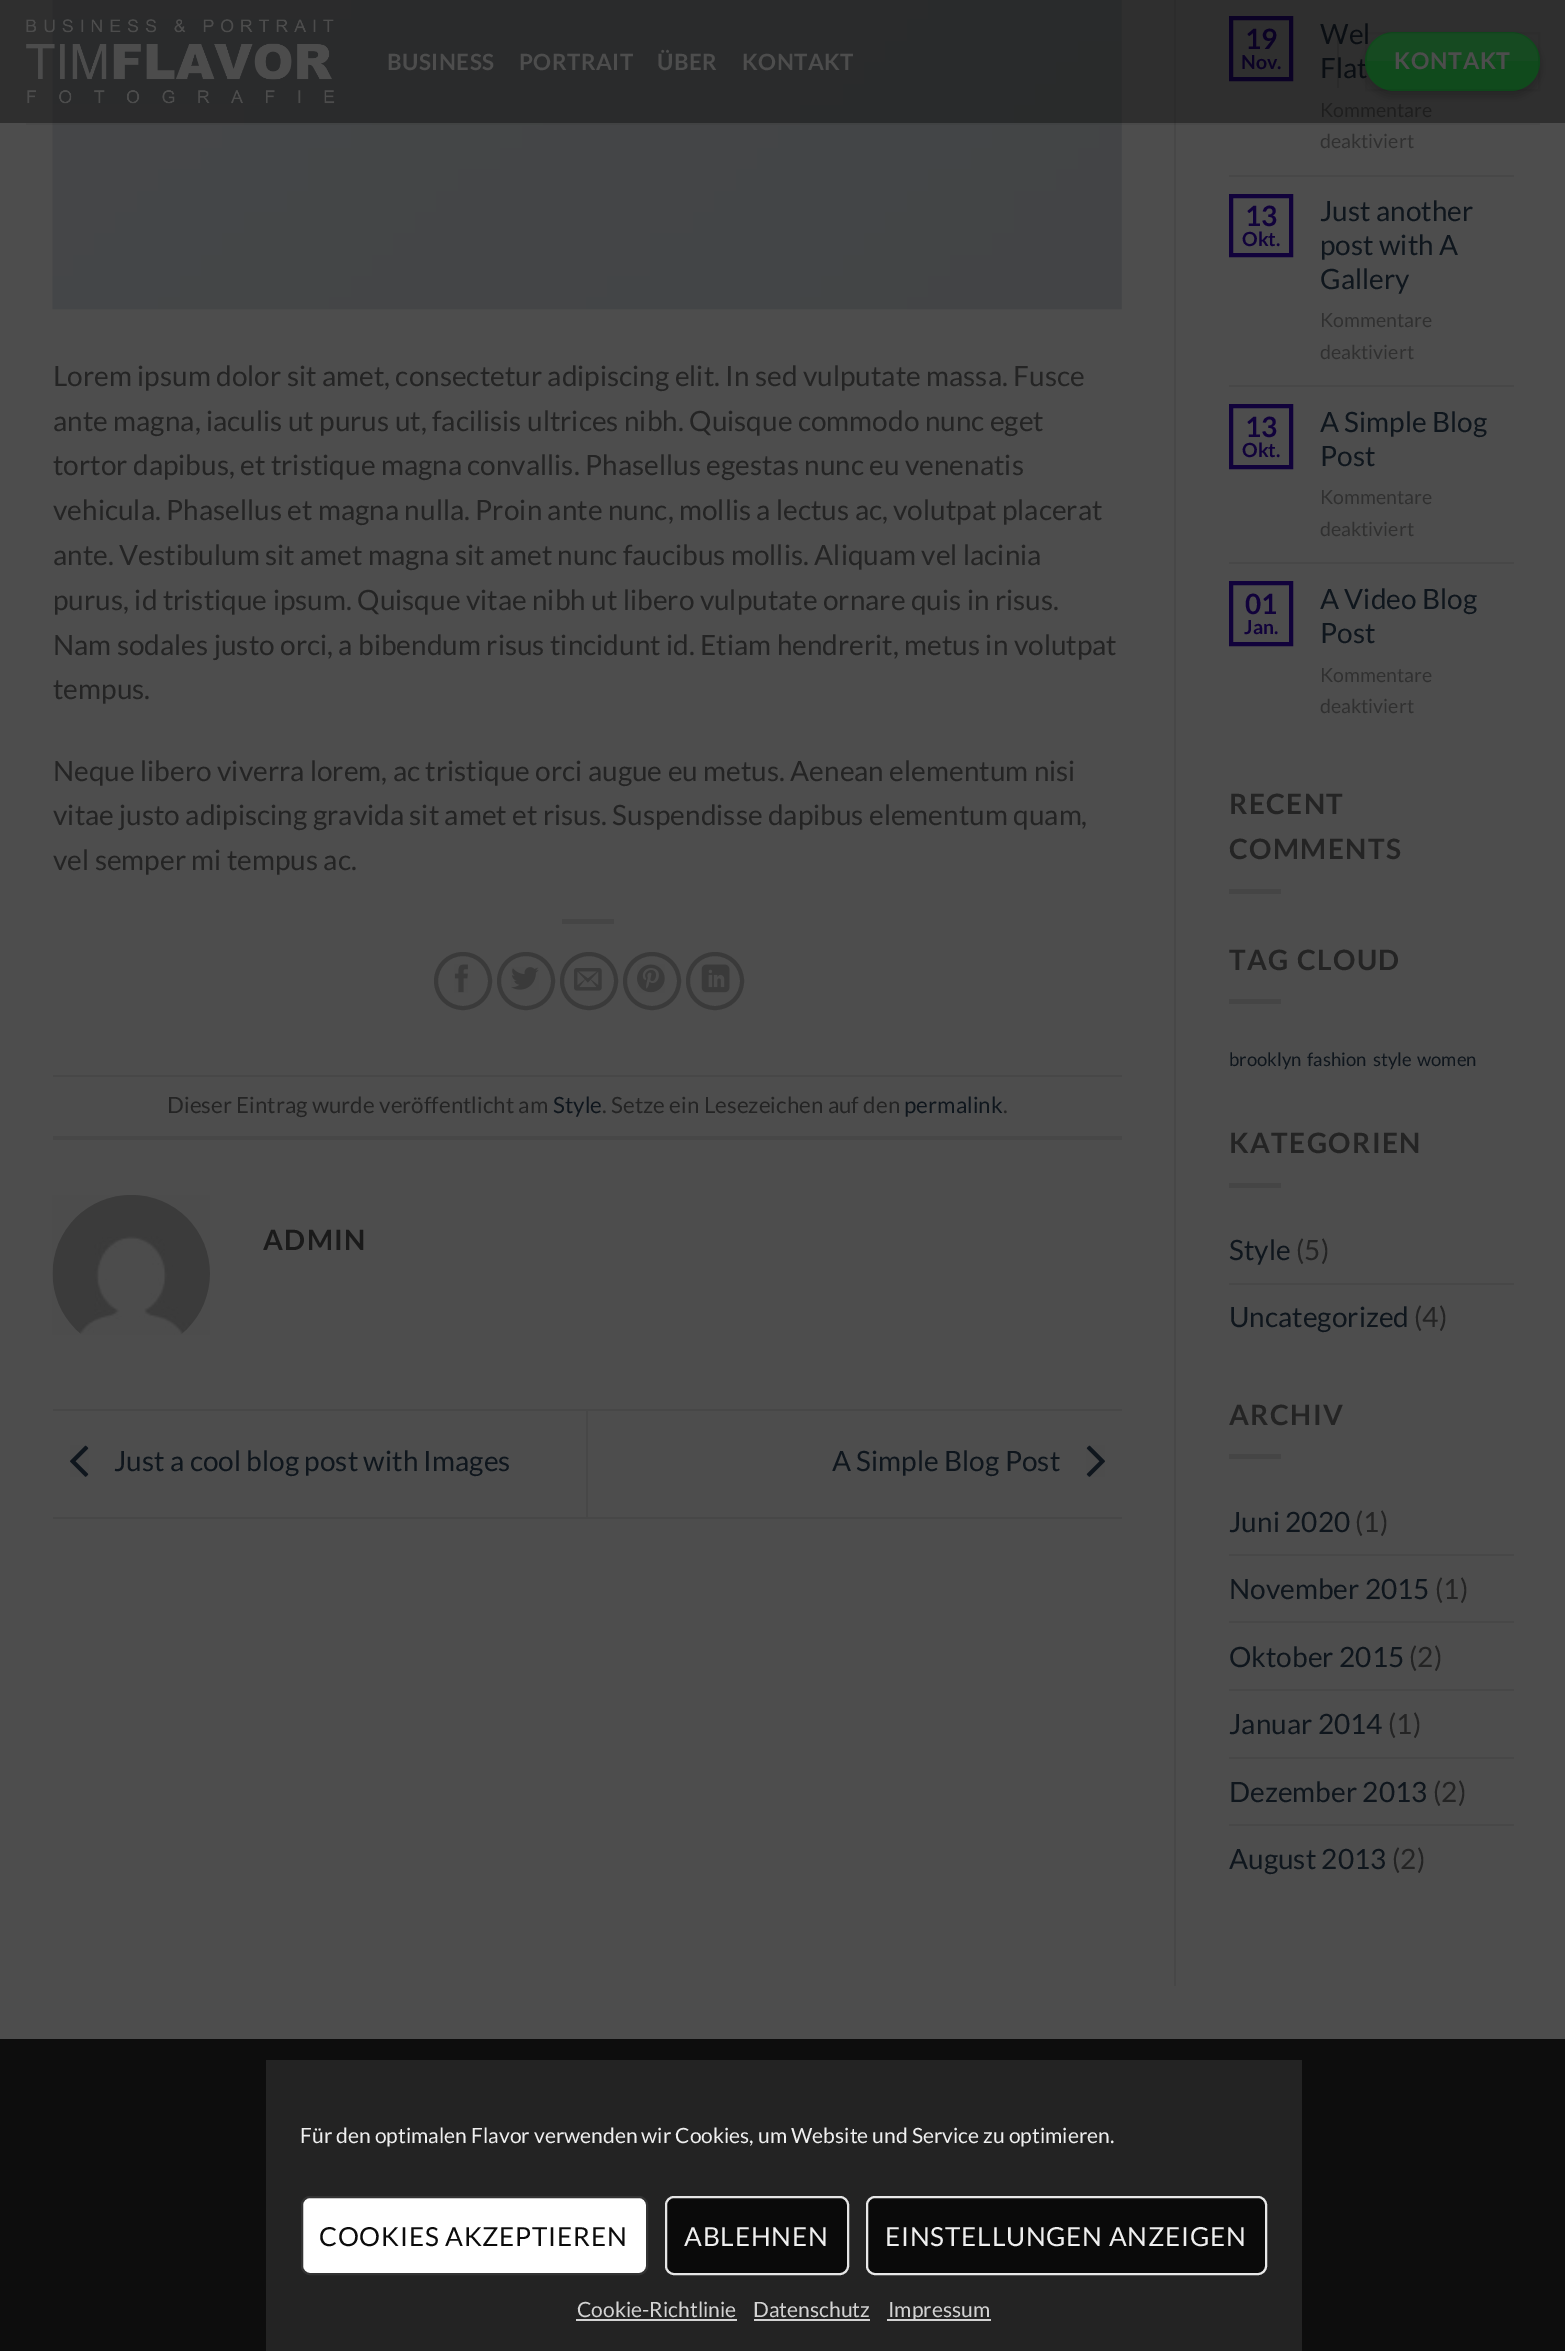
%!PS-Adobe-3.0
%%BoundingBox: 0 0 1565 2351
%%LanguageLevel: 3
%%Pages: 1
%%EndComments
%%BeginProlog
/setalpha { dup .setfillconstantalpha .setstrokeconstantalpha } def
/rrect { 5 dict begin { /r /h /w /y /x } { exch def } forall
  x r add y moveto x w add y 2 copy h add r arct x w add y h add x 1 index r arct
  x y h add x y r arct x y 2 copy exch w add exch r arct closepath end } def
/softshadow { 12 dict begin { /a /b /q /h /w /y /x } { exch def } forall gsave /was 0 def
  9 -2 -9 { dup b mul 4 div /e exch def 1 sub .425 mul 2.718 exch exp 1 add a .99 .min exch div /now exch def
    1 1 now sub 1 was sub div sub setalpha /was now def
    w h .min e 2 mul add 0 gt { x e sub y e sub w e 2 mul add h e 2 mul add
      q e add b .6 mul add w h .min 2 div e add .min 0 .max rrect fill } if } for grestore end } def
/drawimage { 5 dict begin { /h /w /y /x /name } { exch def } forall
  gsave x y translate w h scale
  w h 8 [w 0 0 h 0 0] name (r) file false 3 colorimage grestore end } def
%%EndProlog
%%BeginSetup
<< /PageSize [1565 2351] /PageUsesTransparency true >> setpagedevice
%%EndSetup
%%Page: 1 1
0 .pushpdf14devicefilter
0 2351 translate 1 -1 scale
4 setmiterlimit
0.302 setgray
0 0 1565 2351 rectfill
(images/1.raw) 52 0 1070 310 drawimage
0.271 setgray
562 919 52 5 rectfill
0.227 setgray
4 setlinewidth
newpath 463 981 27 0 360 arc closepath stroke
(images/2.raw) 454 964 14 29 drawimage
newpath 526 981 27 0 360 arc closepath stroke
(images/3.raw) 511 967 28 23 drawimage
newpath 589 981 27 0 360 arc closepath stroke
(images/4.raw) 574 968 28 23 drawimage
newpath 652 981 27 0 360 arc closepath stroke
(images/5.raw) 637 964 28 29 drawimage
newpath 715 981 27 0 360 arc closepath stroke
(images/6.raw) 701 964 29 29 drawimage
0.278 setgray
53 1075 1069 2 rectfill
53 1136 1069 4 rectfill
(images/7.raw) 52 1195 158 140 drawimage
53 1409 1069 2 rectfill
53 1517 1069 2 rectfill
(images/8.raw) 70 1445 19 32 drawimage
586 1411 2 106 rectfill
(images/9.raw) 1086 1445 19 32 drawimage
1174 0 2 1986 rectfill
0.067 0.008 0.231 setrgbcolor
1231 18 60 61 rectstroke
0.278 setgray
1229 175 285 2 rectfill
0.067 0.008 0.231 setrgbcolor
1231 196 60 59 rectstroke
0.278 setgray
1229 385 285 2 rectfill
0.067 0.008 0.231 setrgbcolor
1231 406 60 61 rectstroke
0.278 setgray
1229 562 285 2 rectfill
0.067 0.008 0.231 setrgbcolor
1231 583 60 61 rectstroke
0.271 setgray
1229 889 52 5 rectfill
1229 999 52 5 rectfill
1229 1183 52 5 rectfill
0.278 setgray
1229 1283 285 2 rectfill
0.271 setgray
1229 1454 52 5 rectfill
0.278 setgray
1229 1554 285 2 rectfill
1229 1621 285 2 rectfill
1229 1689 285 2 rectfill
1229 1757 285 2 rectfill
1229 1824 285 2 rectfill
0.1 setalpha
0.141 setgray
26 123 1514 2 rectfill
1 setalpha
0.051 setgray
0 2039 1565 312 rectfill
0.137 setgray
266 2060 1036 291 rectfill
1 setgray
302 2197 345 77 8 rrect gsave fill grestore
0.2 setgray
2 setlinewidth
stroke
0.039 setgray
666 2197 182 77 8 rrect gsave fill grestore
0.898 setgray
stroke
0.039 setgray
867 2197 399 77 8 rrect gsave fill grestore
0.91 setgray
stroke
0.827 setgray
576 2319 161 2 rectfill
754 2319 116 2 rectfill
887 2319 104 2 rectfill
/Lato-Regular [28 0 0 -28 0 0] selectfont
0.141 setgray
53 386 moveto (Lorem ipsum dolor sit amet, consectetur adipiscing elit. In sed vulputate massa. Fusce) show
53 431 moveto (ante magna, iaculis ut purus ut, facilisis ultrices nibh. Quisque commodo nunc eget) show
53 475 moveto (tortor dapibus, et tristique magna convallis. Phasellus egestas nunc eu venenatis) show
53 520 moveto (vehicula. Phasellus et magna nulla. Proin ante nunc, mollis a lectus ac, volutpat placerat) show
53 565 moveto (ante. Vestibulum sit amet magna sit amet nunc faucibus mollis. Aliquam vel lacinia) show
53 610 moveto (purus, id tristique ipsum. Quisque vitae nibh ut libero vulputate ornare quis in risus.) show
53 655 moveto (Nam sodales justo orci, a bibendum risus tincidunt id. Etiam hendrerit, metus in volutpat) show
53 699 moveto (tempus.) show
53 781 moveto (Neque libero viverra lorem, ac tristique orci augue eu metus. Aenean elementum nisi) show
53 825 moveto (vitae justo adipiscing gravida sit amet et risus. Suspendisse dapibus elementum quam,) show
53 870 moveto (vel semper mi tempus ac.) show
/Lato-Regular [22.4 0 0 -22.4 0 0] selectfont
167 1113 moveto (Dieser Eintrag wurde veröffentlicht am) show
0.059 0.086 0.114 setrgbcolor
553 1113 moveto (Style) show
0.141 setgray
602 1113 moveto (. Setze ein Lesezeichen auf den) show
0.059 0.086 0.114 setrgbcolor
904 1113 moveto (permalink) show
0.141 setgray
1003 1113 moveto (.) show
/Lato-Bold [28 0 0 -28 0 0] selectfont
0.102 setgray
263 1250 moveto 1.4 0 (ADMIN) ashow
/Lato-Regular [28 0 0 -28 0 0] selectfont
0.059 0.086 0.114 setrgbcolor
114 1471 moveto (Just a cool blog post with Images) show
832 1471 moveto (A Simple Blog Post) show
/Lato-Bold [28 0 0 -28 0 0] selectfont
0.067 0.008 0.231 setrgbcolor
1245 49 moveto (19) show
/Lato-Bold [19.5 0 0 -19.5 0 0] selectfont
1241 69 moveto (Nov.) show
/Lato-Regular [28 0 0 -28 0 0] selectfont
0.059 0.086 0.114 setrgbcolor
1320 44 moveto (Wel) show
1320 78 moveto (Flat) show
/Lato-Regular [19.5 0 0 -19.5 0 0] selectfont
0.188 setgray
1320 117 moveto (Kommentare) show
1320 148 moveto (deaktiviert) show
/Lato-Bold [28 0 0 -28 0 0] selectfont
0.067 0.008 0.231 setrgbcolor
1245 226 moveto (13) show
/Lato-Bold [19.5 0 0 -19.5 0 0] selectfont
1242 246 moveto (Okt.) show
/Lato-Regular [28 0 0 -28 0 0] selectfont
0.059 0.086 0.114 setrgbcolor
1320 221 moveto (Just another) show
1320 255 moveto (post with A) show
1320 289 moveto (Gallery) show
/Lato-Regular [19.5 0 0 -19.5 0 0] selectfont
0.188 setgray
1320 327 moveto (Kommentare) show
1320 359 moveto (deaktiviert) show
/Lato-Bold [28 0 0 -28 0 0] selectfont
0.067 0.008 0.231 setrgbcolor
1245 437 moveto (13) show
/Lato-Bold [19.5 0 0 -19.5 0 0] selectfont
1242 457 moveto (Okt.) show
/Lato-Regular [28 0 0 -28 0 0] selectfont
0.059 0.086 0.114 setrgbcolor
1320 432 moveto (A Simple Blog) show
1320 466 moveto (Post) show
/Lato-Regular [19.5 0 0 -19.5 0 0] selectfont
0.188 setgray
1320 504 moveto (Kommentare) show
1320 536 moveto (deaktiviert) show
/Lato-Bold [28 0 0 -28 0 0] selectfont
0.067 0.008 0.231 setrgbcolor
1245 614 moveto (01) show
/Lato-Bold [19.5 0 0 -19.5 0 0] selectfont
1244 634 moveto (Jan.) show
/Lato-Regular [28 0 0 -28 0 0] selectfont
0.059 0.086 0.114 setrgbcolor
1320 609 moveto (A Video Blog) show
1320 643 moveto (Post) show
/Lato-Regular [19.5 0 0 -19.5 0 0] selectfont
0.188 setgray
1320 682 moveto (Kommentare) show
1320 713 moveto (deaktiviert) show
/Lato-Bold [28 0 0 -28 0 0] selectfont
0.141 setgray
1229 814 moveto 1.4 0 (RECENT) ashow
1229 859 moveto 1.4 0 (COMMENTS) ashow
1229 970 moveto 1.4 0 (TAG CLOUD) ashow
/Lato-Regular [18.5 0 0 -18.5 0 0] selectfont
0.059 0.086 0.114 setrgbcolor
1229 1066 moveto (brooklyn) show
1307 1066 moveto (fashion) show
1373 1066 moveto (style) show
1417 1066 moveto (women) show
/Lato-Bold [28 0 0 -28 0 0] selectfont
0.141 setgray
1229 1153 moveto 1.4 0 (KATEGORIEN) ashow
/Lato-Regular [28 0 0 -28 0 0] selectfont
0.059 0.086 0.114 setrgbcolor
1229 1260 moveto (Style) show
0.141 setgray
1296 1260 moveto (\(5\)) show
0.059 0.086 0.114 setrgbcolor
1229 1327 moveto (Uncategorized) show
0.141 setgray
1414 1327 moveto (\(4\)) show
/Lato-Bold [28 0 0 -28 0 0] selectfont
1229 1425 moveto 1.4 0 (ARCHIV) ashow
/Lato-Regular [28 0 0 -28 0 0] selectfont
0.059 0.086 0.114 setrgbcolor
1229 1532 moveto (Juni 2020) show
0.141 setgray
1355 1532 moveto (\(1\)) show
0.059 0.086 0.114 setrgbcolor
1229 1599 moveto (November 2015) show
0.141 setgray
1435 1599 moveto (\(1\)) show
0.059 0.086 0.114 setrgbcolor
1229 1667 moveto (Oktober 2015) show
0.141 setgray
1409 1667 moveto (\(2\)) show
0.059 0.086 0.114 setrgbcolor
1229 1734 moveto (Januar 2014) show
0.141 setgray
1388 1734 moveto (\(1\)) show
0.059 0.086 0.114 setrgbcolor
1229 1802 moveto (Dezember 2013) show
0.141 setgray
1433 1802 moveto (\(2\)) show
0.059 0.086 0.114 setrgbcolor
1229 1869 moveto (August 2013) show
0.141 setgray
1392 1869 moveto (\(2\)) show
0.4 setalpha
0.012 setgray
0 0 1565 123 rectfill
1 setalpha
(images/10.raw) 26 19 309 85 drawimage
/Lato-Bold [22.4 0 0 -22.4 0 0] selectfont
0.302 setgray
387 70 moveto 0.5 0 (BUSINESS) ashow
519 70 moveto 0.5 0 (PORTRAIT) ashow
657 70 moveto 0.5 0 (ÜBER) ashow
742 70 moveto 0.5 0 (KONTAKT) ashow
0.1 setalpha
0 setgray
1337 35 2 53 rectfill
1 setalpha
1365 37 175 59 29.5 5 0.23 softshadow
0.063 0.29 0.11 setrgbcolor
1365 32 175 59 29.5 rrect fill
0.05 setalpha
0 setgray
1366 33 173 57 rectstroke
0.1 setalpha
0.302 setgray
newpath 1395 33 moveto 1510 33 lineto 1525.5 33 1538 45.5 1538 61 curveto 1367 61 lineto 1367 45.5 1379.5 33 1395 33 curveto closepath fill
/Lato-Bold [23 0 0 -23 0 0] selectfont
1 setalpha
1394 69 moveto 0.75 0 (KONTAKT) ashow
/Lato-Regular [21 0 0 -21 0 0] selectfont
0.937 setgray
300 2143 moveto (Für den optimalen Flavor verwenden wir Cookies, um Website und Service zu optimieren.) show
/Lato-Regular [26.25 0 0 -26.25 0 0] selectfont
0.047 setgray
319 2246 moveto 0.75 0 (COOKIES AKZEPTIEREN) ashow
0.937 setgray
684 2246 moveto 0.75 0 (ABLEHNEN) ashow
885 2246 moveto 0.75 0 (EINSTELLUNGEN ANZEIGEN) ashow
/Lato-Regular [21 0 0 -21 0 0] selectfont
0.827 setgray
577 2317 moveto (Cookie-Richtlinie) show
753 2317 moveto (Datenschutz) show
888 2317 moveto (Impressum) show
.poppdf14devicefilter showpage
%%EOF
